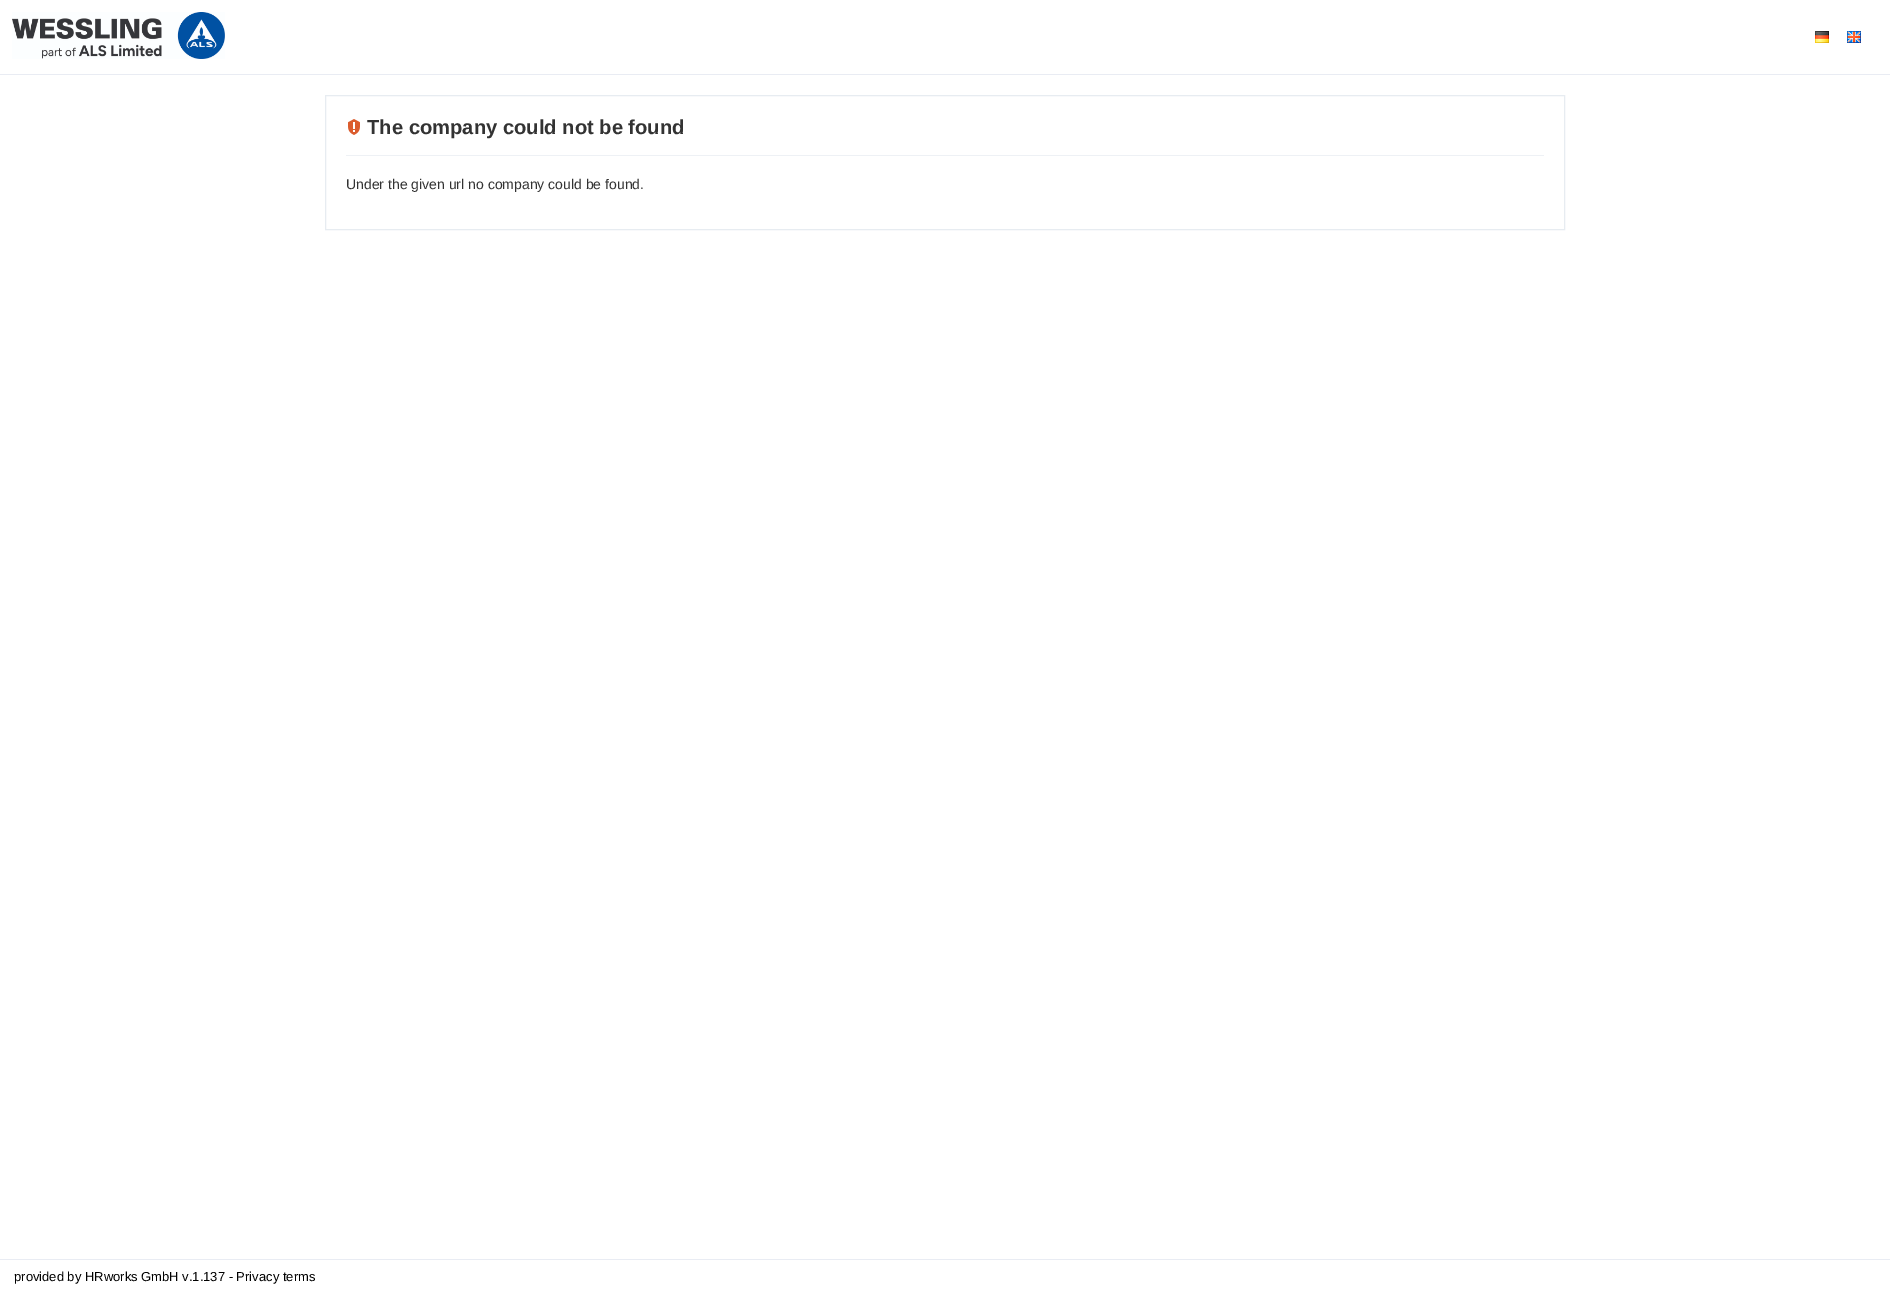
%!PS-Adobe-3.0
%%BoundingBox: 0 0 1890 1292
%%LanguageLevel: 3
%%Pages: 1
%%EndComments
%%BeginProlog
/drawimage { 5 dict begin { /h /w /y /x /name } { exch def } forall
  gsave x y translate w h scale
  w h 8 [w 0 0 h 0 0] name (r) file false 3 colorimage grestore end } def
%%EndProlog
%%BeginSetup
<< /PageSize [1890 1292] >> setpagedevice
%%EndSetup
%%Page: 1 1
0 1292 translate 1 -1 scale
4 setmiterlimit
1 setgray
0 0 1890 1292 rectfill
0.914 0.925 0.953 setrgbcolor
0 74 1890 1 rectfill
(images/1.raw) 12 12 213 47 drawimage
(images/2.raw) 1815 31 14 12 drawimage
(images/3.raw) 1847 31 14 12 drawimage
0.906 0.925 0.945 setrgbcolor
325.5 95.5 1239 134 rectstroke
0.933 0.945 0.961 setrgbcolor
346 155 1198 1 rectfill
(images/4.raw) 348 119 12 16 drawimage
0.914 0.925 0.953 setrgbcolor
0 1259 1890 1 rectfill
/LiberationSans-Bold [20.2 0 0 -20.2 0 0] selectfont
0.2 setgray
367 134 moveto (The company could not be found) show
/LiberationSans-Regular [14 0 0 -14 0 0] selectfont
346 189 moveto (Under the given url no company could be found.) show
/LiberationSans-Regular [13 0 0 -13 0 0] selectfont
0 setgray
14 1281 moveto (provided by HRworks GmbH v.1.137 - Privacy terms) show
showpage
%%EOF
